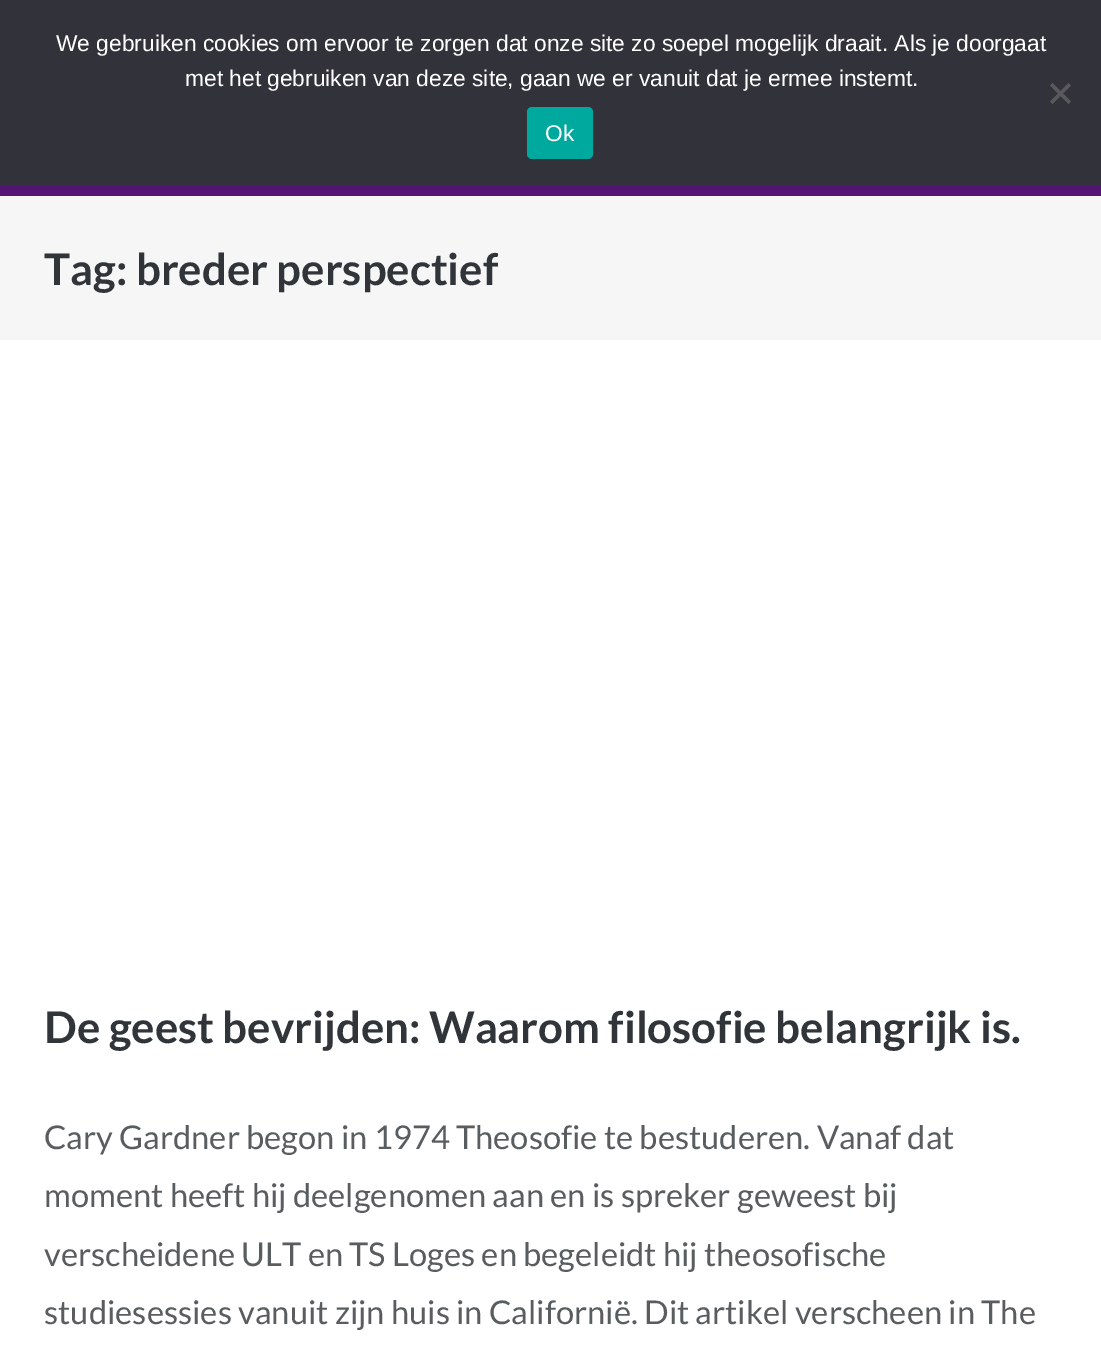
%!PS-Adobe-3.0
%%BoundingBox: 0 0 1101 1361
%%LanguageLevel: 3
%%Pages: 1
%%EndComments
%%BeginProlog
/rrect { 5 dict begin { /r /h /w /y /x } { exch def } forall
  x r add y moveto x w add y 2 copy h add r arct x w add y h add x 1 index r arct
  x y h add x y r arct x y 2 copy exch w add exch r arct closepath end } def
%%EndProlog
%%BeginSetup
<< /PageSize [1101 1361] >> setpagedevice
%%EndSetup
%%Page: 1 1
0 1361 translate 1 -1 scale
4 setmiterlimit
1 setgray
0 0 1101 1361 rectfill
0.196 0.196 0.227 setrgbcolor
0 0 1101 186 rectfill
0.349 0.349 0.365 setrgbcolor
newpath 1068.5 83 moveto 1071 85.5 lineto 1052.5 104 lineto 1050 101.5 lineto closepath fill
newpath 1050 85.5 moveto 1052.5 83 lineto 1071 101.5 lineto 1068.5 104 lineto closepath fill
0 0.663 0.616 setrgbcolor
527 107 66 52 5 rrect fill
0.325 0.082 0.459 setrgbcolor
0 186 1101 10 rectfill
0.965 0.965 0.969 setrgbcolor
0 196 1101 144 rectfill
/LiberationSans-Regular [22.75 0 0 -22.75 0 0] selectfont
1 setgray
56 51 moveto (We gebruiken cookies om ervoor te zorgen dat onze site zo soepel mogelijk draait. Als je doorgaat) show
185 86 moveto (met het gebruiken van deze site, gaan we er vanuit dat je ermee instemt.) show
545 141 moveto (Ok) show
/Lato-Bold [43.75 0 0 -43.75 0 0] selectfont
0.192 0.208 0.224 setrgbcolor
44 285 moveto (Tag: breder perspectief) show
44 1043 moveto (De geest bevrijden: Waarom filosofie belangrijk is.) show
/Lato-Regular [32.7 0 0 -32.7 0 0] selectfont
0.353 0.365 0.376 setrgbcolor
44 1149 moveto (Cary Gardner begon in 1974 Theosofie te bestuderen. Vanaf dat) show
44 1207 moveto (moment heeft hij deelgenomen aan en is spreker geweest bij) show
44 1266 moveto (verscheidene ULT en TS Loges en begeleidt hij theosofische) show
44 1324 moveto (studiesessies vanuit zijn huis in Californië. Dit artikel verscheen in The) show
showpage
%%EOF
